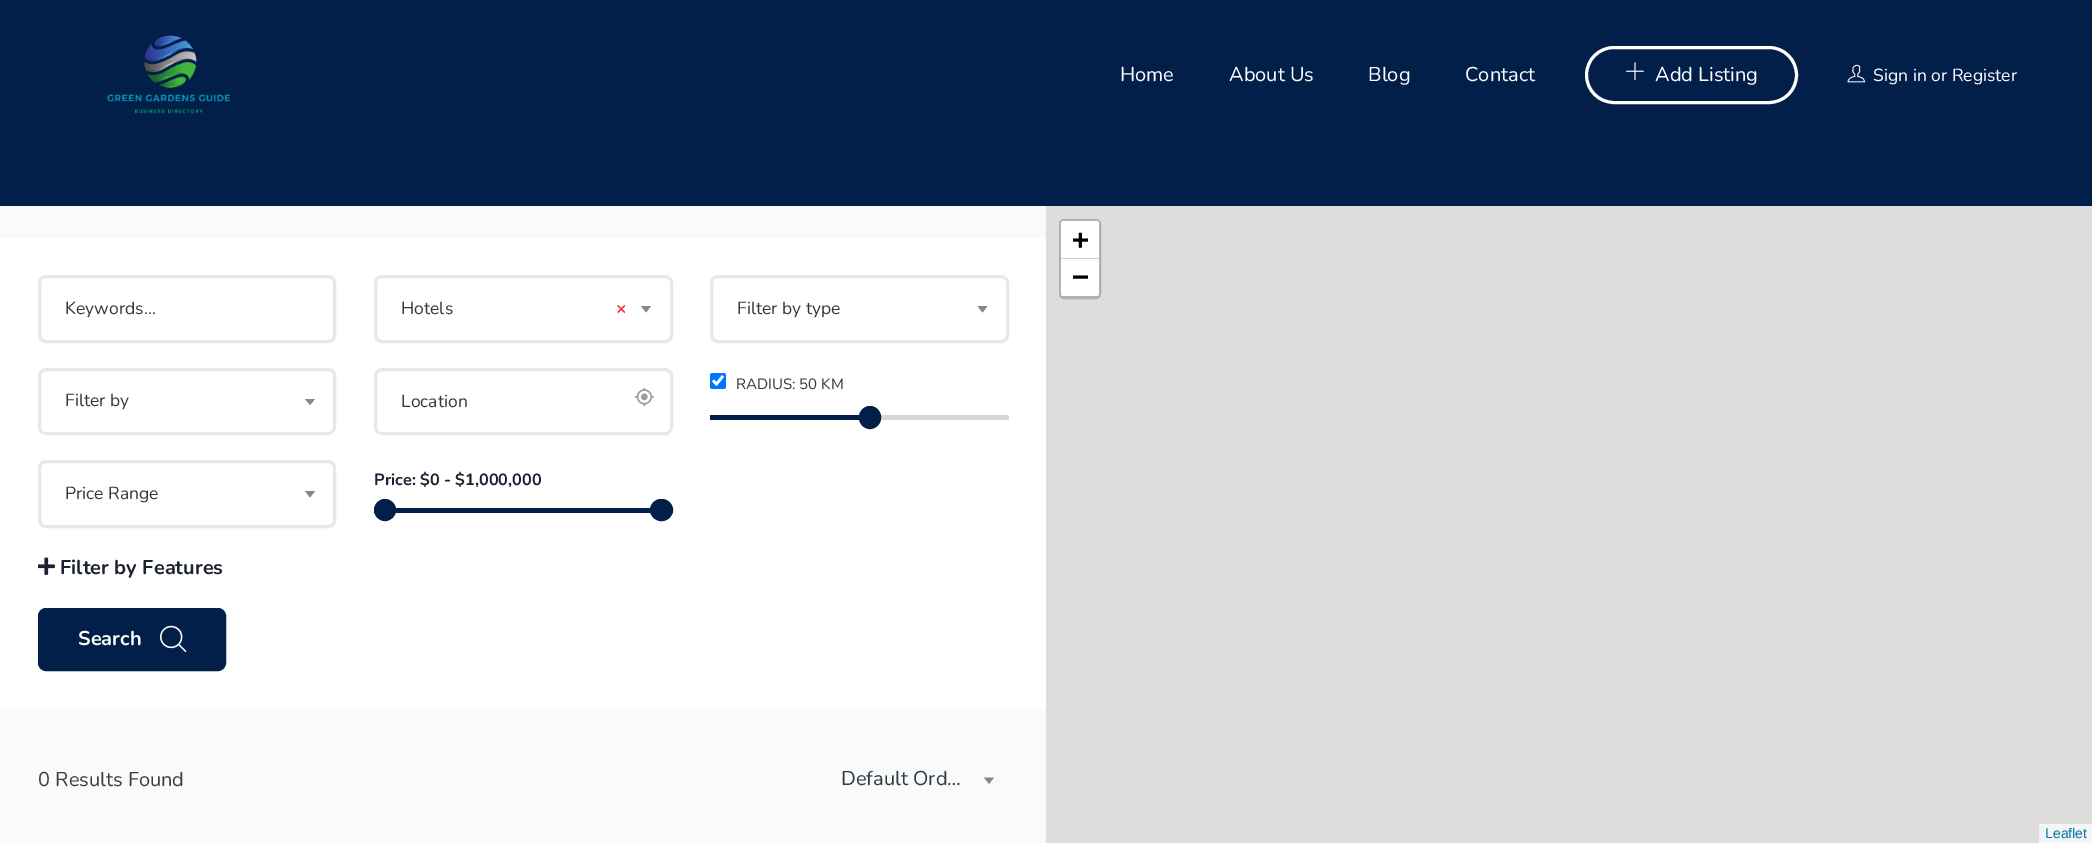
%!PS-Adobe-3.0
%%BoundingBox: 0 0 2092 843
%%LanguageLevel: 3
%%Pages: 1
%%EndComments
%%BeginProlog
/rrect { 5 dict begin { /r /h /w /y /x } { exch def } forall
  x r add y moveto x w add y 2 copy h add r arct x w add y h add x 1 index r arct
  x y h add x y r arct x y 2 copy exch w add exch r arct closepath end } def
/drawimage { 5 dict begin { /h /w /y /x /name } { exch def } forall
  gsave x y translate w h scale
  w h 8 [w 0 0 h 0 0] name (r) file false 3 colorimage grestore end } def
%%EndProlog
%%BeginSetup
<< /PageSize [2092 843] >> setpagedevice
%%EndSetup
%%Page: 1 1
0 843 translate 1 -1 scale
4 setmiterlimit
0.976 0.98 0.988 setrgbcolor
0 0 2092 843 rectfill
0.008 0.122 0.29 setrgbcolor
0 0 2092 206 rectfill
(images/1.raw) 107 35 124 79 drawimage
1 setgray
3 setlinewidth
1586.5 47.5 210 55 27.5 rrect stroke
(images/2.raw) 1626 62 18 19 drawimage
(images/3.raw) 1847 64 18 19 drawimage
0 238 1046 471 rectfill
0.902 0.91 0.929 setrgbcolor
39.5 276.5 295 65 6.5 rrect stroke
375.5 276.5 296 65 6.5 rrect stroke
0.533 setgray
newpath 641 306 moveto 651 306 lineto 646 312.5 lineto closepath fill
0.902 0.91 0.929 setrgbcolor
711.5 276.5 296 65 6.5 rrect stroke
0.533 setgray
newpath 977.5 306 moveto 987.5 306 lineto 982.5 312.5 lineto closepath fill
0 0.459 1 setrgbcolor
710 373 16 16 2.5 rrect fill
1 setgray
2.6 setlinewidth
newpath 713 380.5 moveto 716.5 384 lineto 723 376 lineto stroke
0.843 setgray
710 415 299 5 2.5 rrect fill
0.008 0.122 0.29 setrgbcolor
710 415 149 5 rectfill
859.5 406.5 21 22 10.5 rrect gsave fill grestore
1 setlinewidth
stroke
0.902 0.91 0.929 setrgbcolor
3 setlinewidth
39.5 369.5 295 64 6.5 rrect stroke
0.533 setgray
newpath 305 399 moveto 315 399 lineto 310 405 lineto closepath fill
0.902 0.91 0.929 setrgbcolor
375.5 369.5 296 64 6.5 rrect stroke
(images/4.raw) 635 388 19 18 drawimage
0.008 0.122 0.29 setrgbcolor
374 508 299 5 rectfill
newpath 385 510 10.5 0 360 arc closepath gsave fill grestore
1 setlinewidth
stroke
650.5 499.5 22 21 10.5 rrect gsave fill grestore
stroke
0.902 0.91 0.929 setrgbcolor
3 setlinewidth
39.5 461.5 295 65 6.5 rrect stroke
0.533 setgray
newpath 305 491 moveto 315 491 lineto 310 497.5 lineto closepath fill
(images/5.raw) 38 557 17 18 drawimage
0.008 0.122 0.29 setrgbcolor
39.5 609.5 185 60 6.5 rrect gsave fill grestore
stroke
(images/6.raw) 160 625 27 27 drawimage
0.533 setgray
newpath 984 777.5 moveto 994 777.5 lineto 989 784 lineto closepath fill
0.867 setgray
1046 206 1046 637 rectfill
0.694 setgray
1060.5 220.5 39 77 3.5 rrect stroke
1 setgray
newpath 1063.5 221 moveto 1096.5 221 lineto 1098 221 1099 222 1099 223.5 curveto 1099 259 lineto 1061 259 lineto 1061 223.5 lineto 1061 222 1062 221 1063.5 221 curveto closepath fill
0.8 setgray
1061 258 38 1 rectfill
1 setgray
newpath 1061 259 moveto 1099 259 lineto 1099 293.5 lineto 1099 295 1098 296 1096.5 296 curveto 1063.5 296 lineto 1062 296 1061 295 1061 293.5 curveto closepath fill
0.961 setgray
2039 824 53 19 rectfill
/Nunito-Regular [20 0 0 -20 0 0] selectfont
1 setgray
1120 81 moveto (Home) show
1229 81 moveto (About Us) show
1368 81 moveto (Blog) show
1465 81 moveto (Contact) show
1655 81 moveto (Add Listing) show
/Nunito-Regular [17.5 0 0 -17.5 0 0] selectfont
1873 81 moveto (Sign in or Register) show
0.2 0.224 0.239 setrgbcolor
65 314 moveto (Keywords...) show
401 314 moveto (Hotels) show
/Nunito-Bold [17.5 0 0 -17.5 0 0] selectfont
0.937 0.184 0.141 setrgbcolor
616 314 moveto (×) show
/Nunito-Regular [17.5 0 0 -17.5 0 0] selectfont
0.2 0.224 0.239 setrgbcolor
737 314 moveto (Filter by type) show
/Nunito-Regular [15 0 0 -15 0 0] selectfont
736 389 moveto (RADIUS: 50 KM) show
/Nunito-Regular [17.5 0 0 -17.5 0 0] selectfont
65 406 moveto (Filter by) show
401 407 moveto (Location) show
/Nunito-Bold [16.25 0 0 -16.25 0 0] selectfont
0.106 0.125 0.196 setrgbcolor
374 485 moveto (Price: $0 - $1,000,000) show
/Nunito-Regular [17.5 0 0 -17.5 0 0] selectfont
0.2 0.224 0.239 setrgbcolor
65 499 moveto (Price Range) show
/Nunito-Bold [20 0 0 -20 0 0] selectfont
0.106 0.125 0.196 setrgbcolor
60 574 moveto (Filter by Features) show
1 setgray
78 645 moveto (Search) show
/Nunito-Regular [20 0 0 -20 0 0] selectfont
0.243 setgray
38 786 moveto (0 Results Found) show
0.2 0.224 0.239 setrgbcolor
841 785 moveto (Default Ord…) show
/DejaVuSansMono-Bold [28 0 0 -28 0 0] selectfont
0 setgray
1072 249 moveto (+) show
1072 286 moveto (−) show
/LiberationSans-Regular [14 0 0 -14 0 0] selectfont
0 0.471 0.659 setrgbcolor
2045 838 moveto (Leaflet) show
showpage
%%EOF
